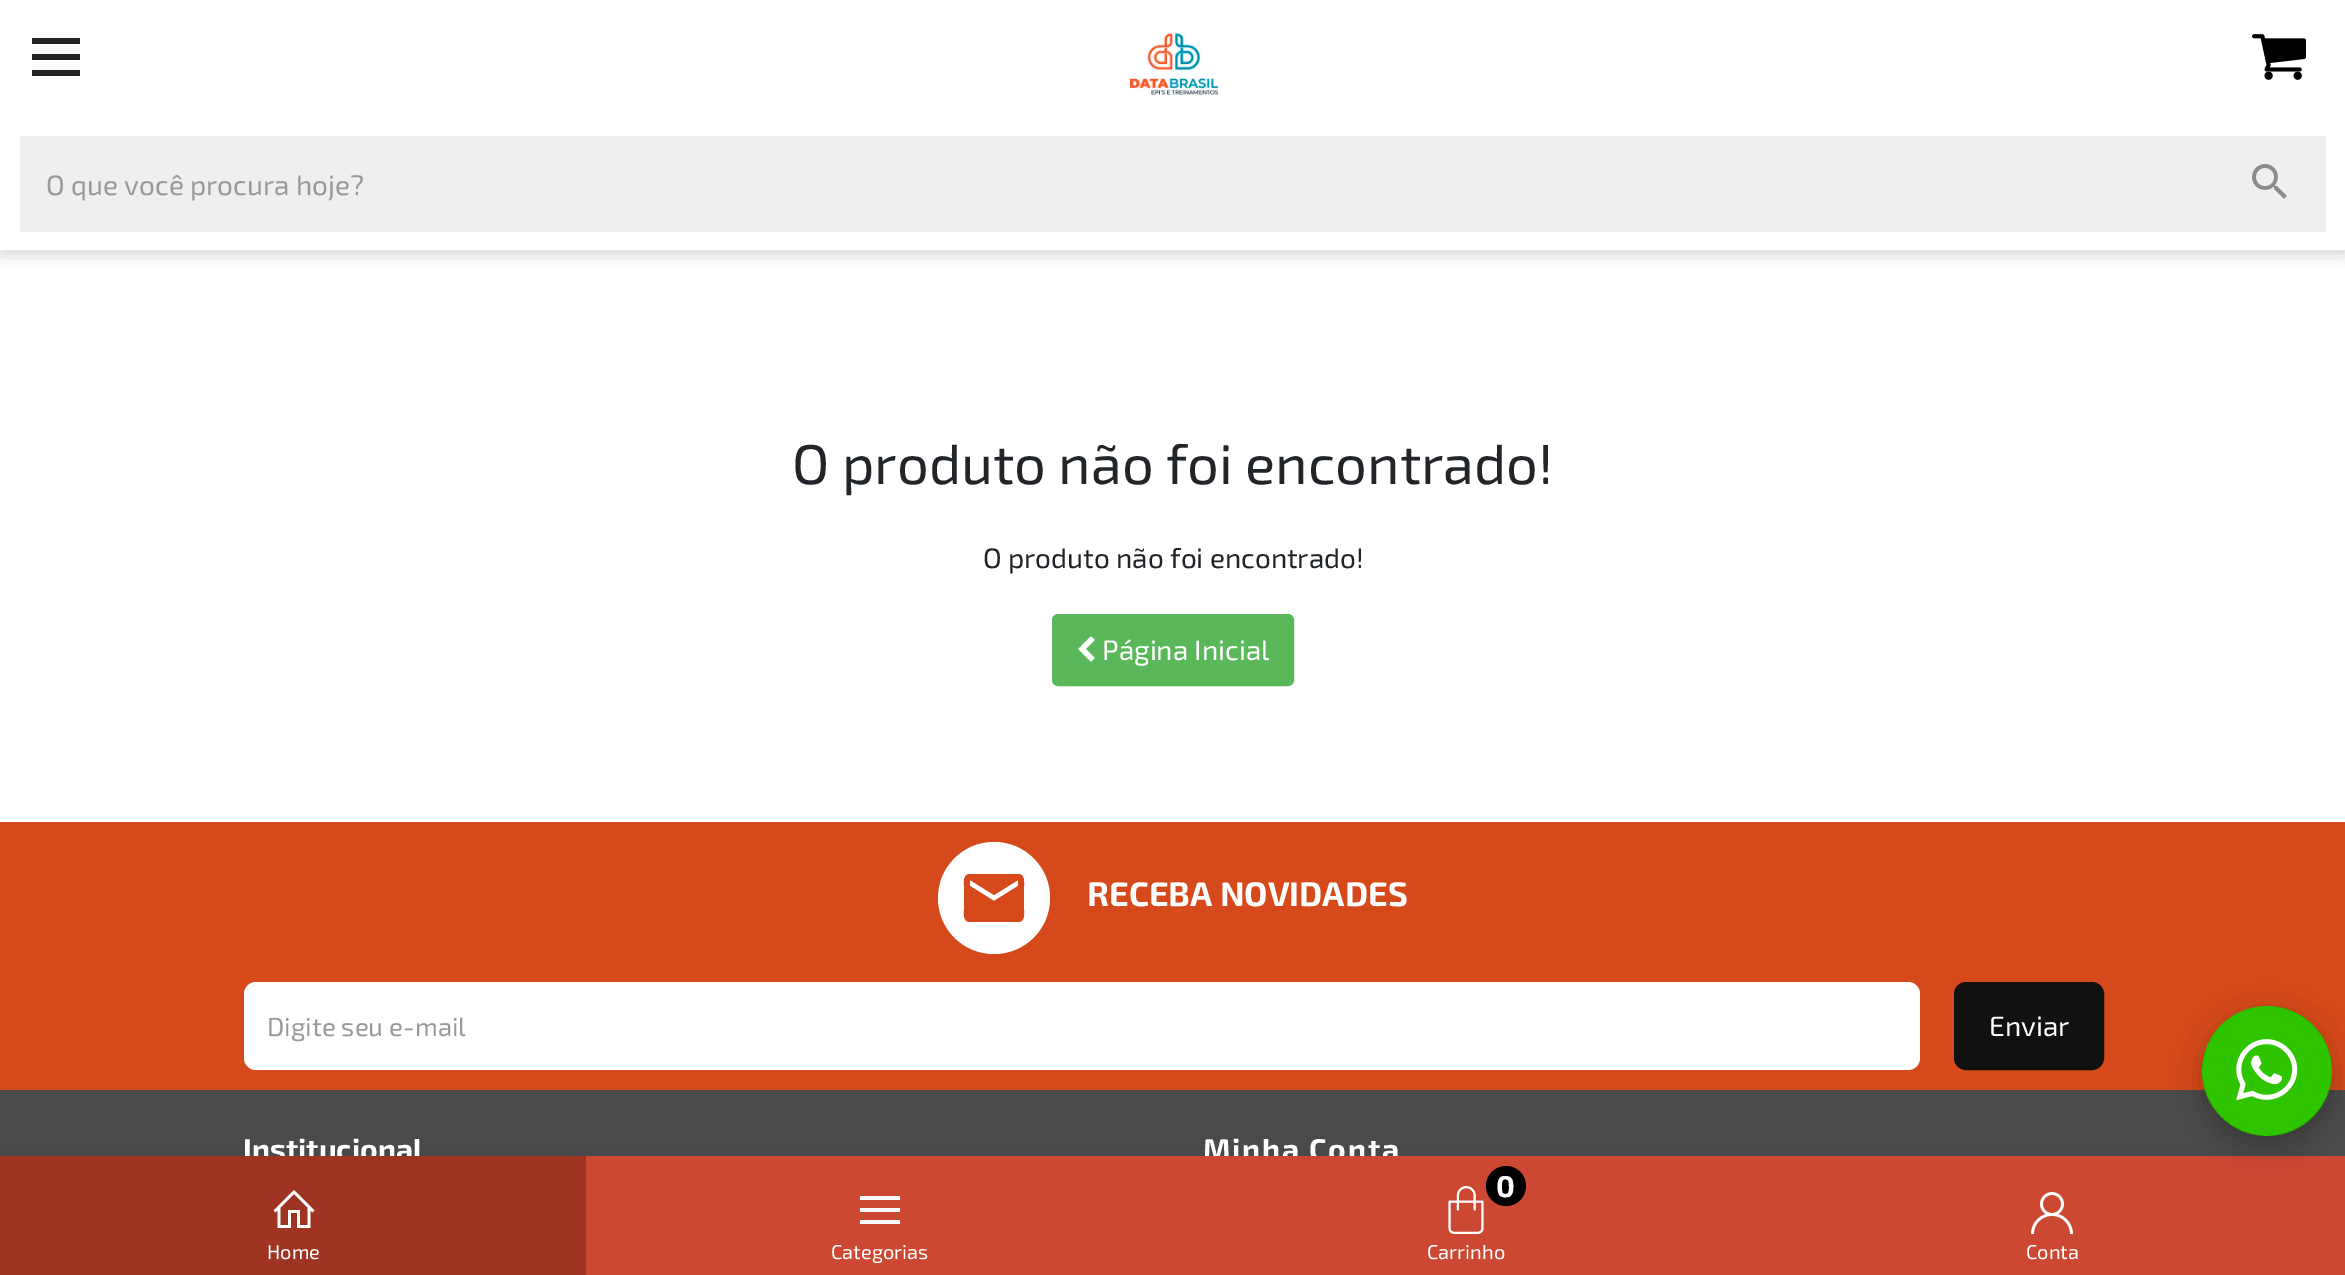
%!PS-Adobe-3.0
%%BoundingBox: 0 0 2345 1275
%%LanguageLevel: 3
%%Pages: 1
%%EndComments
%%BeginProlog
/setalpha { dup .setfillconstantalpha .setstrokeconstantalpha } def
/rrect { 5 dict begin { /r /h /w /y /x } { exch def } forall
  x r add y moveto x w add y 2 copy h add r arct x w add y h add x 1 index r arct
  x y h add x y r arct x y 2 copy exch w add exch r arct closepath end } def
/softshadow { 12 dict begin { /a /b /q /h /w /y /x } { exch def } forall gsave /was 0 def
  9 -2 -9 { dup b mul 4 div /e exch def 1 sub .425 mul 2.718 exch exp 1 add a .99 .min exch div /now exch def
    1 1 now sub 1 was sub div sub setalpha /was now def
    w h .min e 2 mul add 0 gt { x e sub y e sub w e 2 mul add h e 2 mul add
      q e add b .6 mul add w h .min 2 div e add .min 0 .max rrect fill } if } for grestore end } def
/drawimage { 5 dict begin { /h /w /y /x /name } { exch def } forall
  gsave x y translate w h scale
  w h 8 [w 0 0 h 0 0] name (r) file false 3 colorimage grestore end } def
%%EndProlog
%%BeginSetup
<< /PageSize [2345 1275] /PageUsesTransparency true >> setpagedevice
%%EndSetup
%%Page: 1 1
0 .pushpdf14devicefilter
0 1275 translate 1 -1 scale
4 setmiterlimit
1 setgray
0 0 2345 1275 rectfill
gsave
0 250 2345 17 rectclip
0.263 0.263 0.271 setrgbcolor
0 2 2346 250 0 10 0.3 softshadow
grestore
(images/1.raw) 2252 34 54 46 drawimage
0.129 setgray
32 54 48 6 rectfill
32 38 48 6 rectfill
32 70 48 6 rectfill
(images/2.raw) 1130 32 88 65 drawimage
0.937 setgray
22 138 2194 92 rectfill
20 136 2198 2 rectfill
20 230 2198 2 rectfill
20 136 2 96 rectfill
2216 136 110 96 rectfill
(images/3.raw) 2252 164 35 35 drawimage
0.357 0.722 0.353 setrgbcolor
1054 616 238 68 4 rrect gsave fill grestore
4 setlinewidth
stroke
(images/4.raw) 1078 636 17 26 drawimage
0.839 0.286 0.102 setrgbcolor
0 822 2345 268 rectfill
1 setgray
newpath 994 898 56 0 360 arc closepath fill
0.839 0.286 0.102 setrgbcolor
newpath 1018 886 moveto 1018 880 lineto 994 895 lineto 970 880 lineto 970 886 lineto 994 901 lineto closepath 1018 874 moveto 1025 874 1024 882 1024 886 curveto 1024 910 lineto 1024 914 1025 921 1019 922 curveto 969 922 lineto 963 921 964 914 964 910 curveto 964 886 lineto 964 882 963 875 969 874 curveto closepath fill
1 setgray
244 982 1676 88 12 rrect fill
0.067 setgray
1956 984 146 84 10 rrect gsave fill grestore
stroke
0.294 setgray
0 1090 2345 66 rectfill
0.169 0.204 0.271 setrgbcolor
-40 1156 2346 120 0 32 0.15 softshadow
0.184 0.769 0 setrgbcolor
newpath 2267 1071 65 0 360 arc closepath fill
/Exo2-Regular [28 0 0 -28 0 0] selectfont
0.6 setgray
46 195 moveto (O que você procura hoje?) show
/Exo2-Regular [56 0 0 -56 0 0] selectfont
0.129 0.145 0.161 setrgbcolor
792 484 moveto (O produto não foi encontrado!) show
/Exo2-Regular [28 0 0 -28 0 0] selectfont
983 568 moveto (O produto não foi encontrado!) show
1 setgray
1102 660 moveto (Página Inicial) show
/Exo2-Bold [34 0 0 -34 0 0] selectfont
1087 906 moveto (RECEBA NOVIDADES) show
/Exo2-Regular [26 0 0 -26 0 0] selectfont
0.6 setgray
267 1036 moveto (Digite seu e-mail) show
/Exo2-Regular [28 0 0 -28 0 0] selectfont
1 setgray
1989 1036 moveto (Enviar) show
/Exo2-Bold [30 0 0 -30 0 0] selectfont
243 1160 moveto (Institucional) show
1203 1160 moveto 1.75 0 (Minha Conta) ashow
0.8 0.282 0.2 setrgbcolor
586 1156 1759 119 rectfill
gsave
newpath 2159 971 moveto 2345 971 lineto 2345 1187 lineto 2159 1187 lineto closepath 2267 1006 moveto 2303 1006 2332 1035 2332 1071 curveto 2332 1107 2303 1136 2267 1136 curveto 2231 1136 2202 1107 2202 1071 curveto 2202 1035 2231 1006 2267 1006 curveto closepath eoclip newpath
0 setgray
2202 1014 130 130 65 14 0.24 softshadow
grestore
(images/5.raw) 2236 1039 62 62 drawimage
0.627 0.204 0.137 setrgbcolor
0 1156 586 119 rectfill
(images/6.raw) 273 1190 42 38 drawimage
/Exo2-Regular [20 0 0 -20 0 0] selectfont
1 setgray
267 1259 moveto (Home) show
newpath 860 1196 moveto 860 1200 lineto 900 1200 lineto 900 1196 lineto closepath 860 1208 moveto 860 1212 lineto 900 1212 lineto 900 1208 lineto closepath 860 1220 moveto 860 1224 lineto 900 1224 lineto 900 1220 lineto closepath fill
831 1259 moveto (Categorias) show
(images/7.raw) 1448 1186 36 48 drawimage
0 setgray
newpath 1506 1186 20 0 360 arc closepath fill
/Exo2-Bold [30 0 0 -30 0 0] selectfont
1 setgray
1496 1197 moveto (0) show
/Exo2-Regular [20 0 0 -20 0 0] selectfont
1427 1259 moveto (Carrinho) show
(images/8.raw) 2031 1192 42 42 drawimage
2026 1259 moveto (Conta) show
.poppdf14devicefilter showpage
%%EOF
